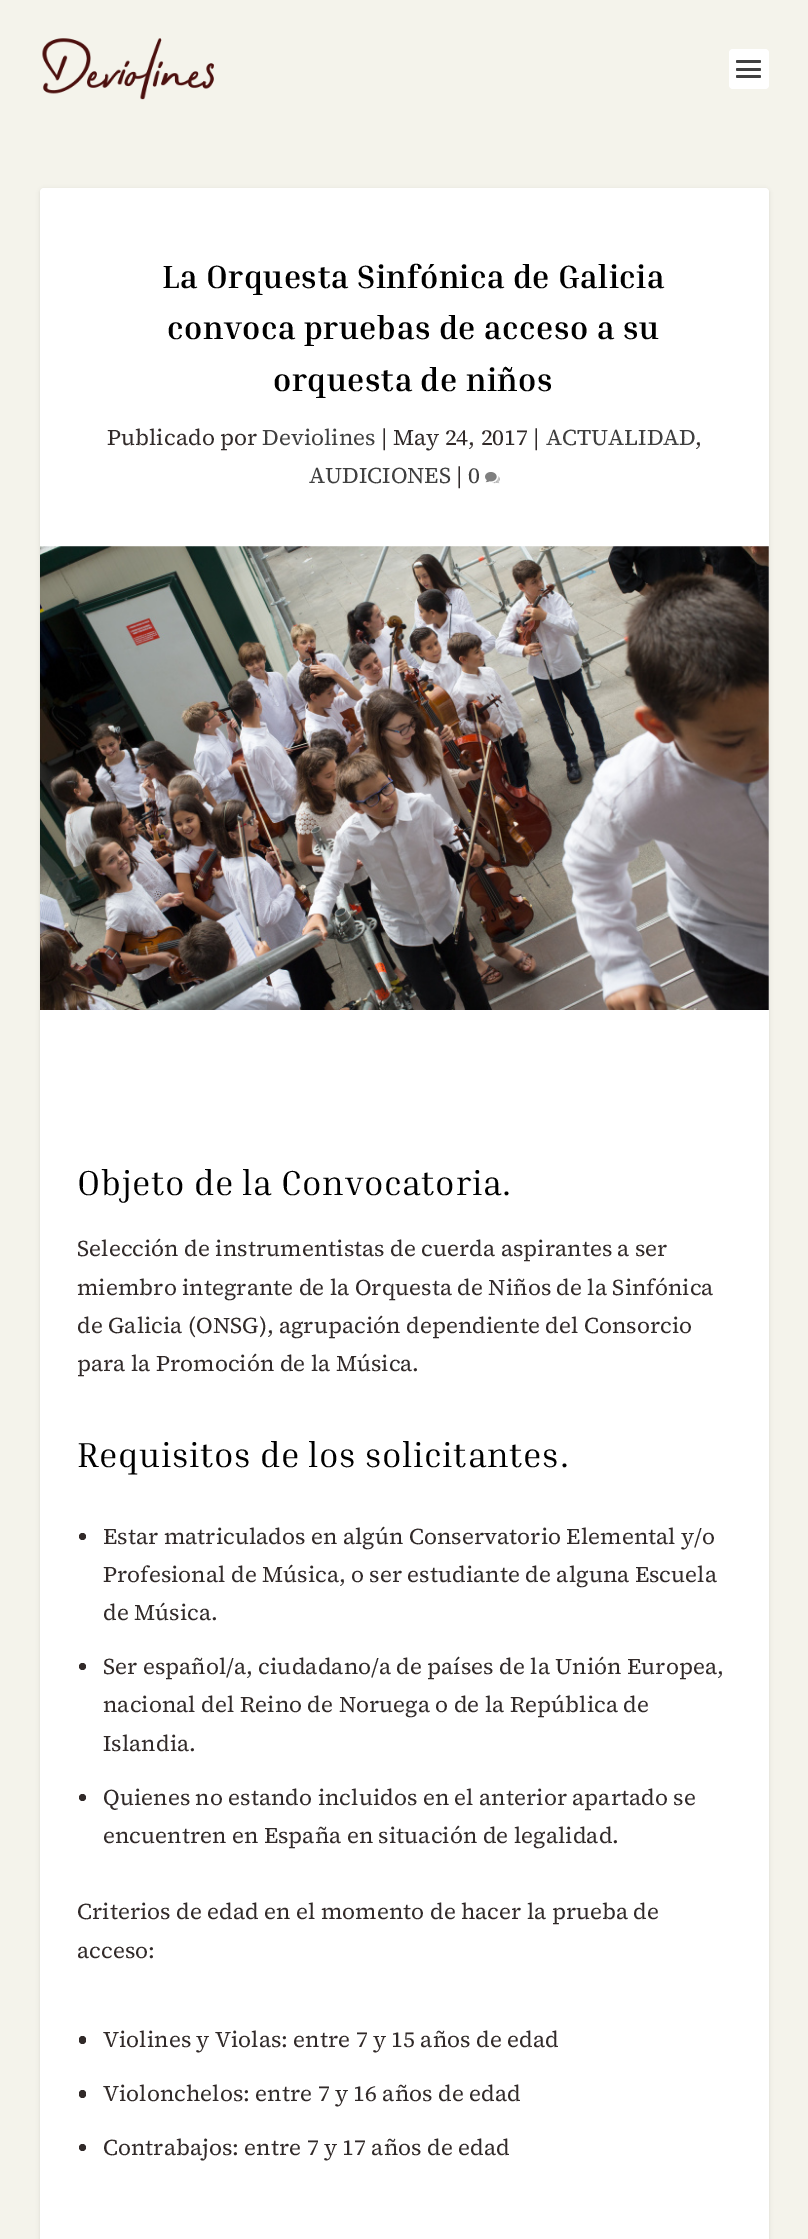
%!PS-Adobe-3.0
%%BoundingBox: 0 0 808 2239
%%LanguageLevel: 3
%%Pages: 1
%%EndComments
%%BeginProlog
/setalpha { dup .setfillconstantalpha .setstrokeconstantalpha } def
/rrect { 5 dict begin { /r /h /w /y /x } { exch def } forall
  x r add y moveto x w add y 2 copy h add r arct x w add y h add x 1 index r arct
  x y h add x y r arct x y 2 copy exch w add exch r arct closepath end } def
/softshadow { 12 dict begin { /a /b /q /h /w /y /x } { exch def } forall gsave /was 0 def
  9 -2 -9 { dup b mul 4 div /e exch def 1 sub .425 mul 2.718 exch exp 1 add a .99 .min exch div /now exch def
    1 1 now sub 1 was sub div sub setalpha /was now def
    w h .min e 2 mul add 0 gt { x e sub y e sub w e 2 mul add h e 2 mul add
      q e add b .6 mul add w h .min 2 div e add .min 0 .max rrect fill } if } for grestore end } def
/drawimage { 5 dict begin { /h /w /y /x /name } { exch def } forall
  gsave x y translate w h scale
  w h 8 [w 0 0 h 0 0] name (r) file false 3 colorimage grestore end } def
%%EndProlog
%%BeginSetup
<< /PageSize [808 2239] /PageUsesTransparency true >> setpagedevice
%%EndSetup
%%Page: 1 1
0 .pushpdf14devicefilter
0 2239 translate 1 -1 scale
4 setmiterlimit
0.957 0.953 0.922 setrgbcolor
0 0 808 2239 rectfill
(images/1.raw) 42 38 172 62 drawimage
1 setgray
729 49 40 40 4 rrect fill
0.251 setgray
736 60 25 3 1.5 rrect fill
736 68 25 3 1.5 rrect fill
736 75 25 3 1.5 rrect fill
0 setgray
40 189 729 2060 4 2 0.1 softshadow
1 setgray
40 188 729 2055 4 rrect fill
(images/2.raw) 485 472 15 12 drawimage
(images/3.raw) 40 546 729 464 drawimage
0.192 0.165 0.161 setrgbcolor
newpath 82.5 1536.5 3.5 0 360 arc closepath fill
newpath 82.5 1666.5 3.5 0 360 arc closepath fill
newpath 82.5 1797.5 3.5 0 360 arc closepath fill
79 2036 7 8 3.5 rrect fill
79 2090 7 8 3.5 rrect fill
newpath 82.5 2147.5 3.5 0 360 arc closepath fill
/InriaSerif-Bold [32.5 0 0 -32.5 0 0] selectfont
0 setgray
162 288 moveto 0.6 0 (La Orquesta Sinfónica de Galicia) ashow
167 339 moveto 0.6 0 (convoca pruebas de acceso a su) ashow
273 391 moveto 0.6 0 (orquesta de niños) ashow
/SourceSerif4-Regular [22.5 0 0 -22.5 0 0] selectfont
0.192 0.165 0.161 setrgbcolor
107 445 moveto (Publicado por) show
0.251 setgray
262 445 moveto (Deviolines) show
0.192 0.165 0.161 setrgbcolor
381 445 moveto (| May 24, 2017 |) show
0.251 setgray
546 445 moveto (ACTUALIDAD) show
0.192 0.165 0.161 setrgbcolor
695 445 moveto (,) show
0.251 setgray
309 483 moveto (AUDICIONES) show
0.192 0.165 0.161 setrgbcolor
456 483 moveto (|) show
0.251 setgray
468 483 moveto (0) show
/InriaSerif-Regular [35 0 0 -35 0 0] selectfont
0 setgray
77 1195 moveto 0.6 0 (Objeto de la Convocatoria.) ashow
/SourceSerif4-Regular [22.5 0 0 -22.5 0 0] selectfont
0.192 0.165 0.161 setrgbcolor
77 1256 moveto (Selección de instrumentistas de cuerda aspirantes a ser) show
77 1295 moveto (miembro integrante de la Orquesta de Niños de la Sinfónica) show
77 1333 moveto (de Galicia \(ONSG\), agrupación dependiente del Consorcio) show
77 1371 moveto (para la Promoción de la Música.) show
/InriaSerif-Regular [35 0 0 -35 0 0] selectfont
0 setgray
77 1467 moveto 0.6 0 (Requisitos de los solicitantes.) ashow
/SourceSerif4-Regular [22.5 0 0 -22.5 0 0] selectfont
0.192 0.165 0.161 setrgbcolor
103 1544 moveto (Estar matriculados en algún Conservatorio Elemental y/o) show
103 1582 moveto (Profesional de Música, o ser estudiante de alguna Escuela) show
103 1620 moveto (de Música.) show
103 1674 moveto (Ser español/a, ciudadano/a de países de la Unión Europea,) show
103 1712 moveto (nacional del Reino de Noruega o de la República de) show
103 1751 moveto (Islandia.) show
103 1805 moveto (Quienes no estando incluidos en el anterior apartado se) show
103 1843 moveto (encuentren en España en situación de legalidad.) show
77 1919 moveto (Criterios de edad en el momento de hacer la prueba de) show
77 1958 moveto (acceso:) show
103 2047 moveto (Violines y Violas: entre 7 y 15 años de edad) show
103 2101 moveto (Violonchelos: entre 7 y 16 años de edad) show
103 2155 moveto (Contrabajos: entre 7 y 17 años de edad) show
.poppdf14devicefilter showpage
%%EOF
